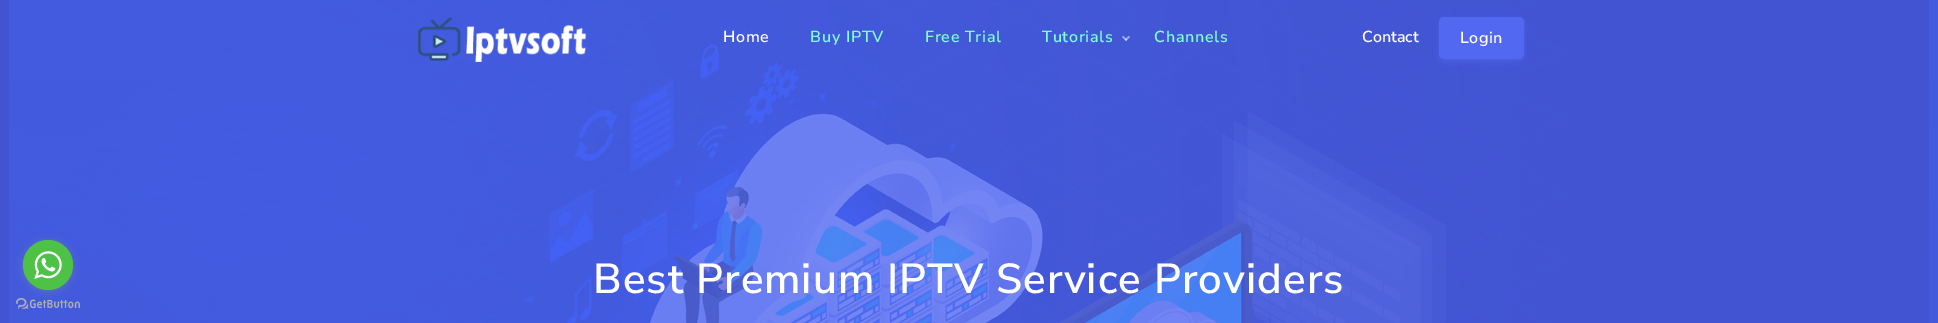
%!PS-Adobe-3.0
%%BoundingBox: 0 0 1938 323
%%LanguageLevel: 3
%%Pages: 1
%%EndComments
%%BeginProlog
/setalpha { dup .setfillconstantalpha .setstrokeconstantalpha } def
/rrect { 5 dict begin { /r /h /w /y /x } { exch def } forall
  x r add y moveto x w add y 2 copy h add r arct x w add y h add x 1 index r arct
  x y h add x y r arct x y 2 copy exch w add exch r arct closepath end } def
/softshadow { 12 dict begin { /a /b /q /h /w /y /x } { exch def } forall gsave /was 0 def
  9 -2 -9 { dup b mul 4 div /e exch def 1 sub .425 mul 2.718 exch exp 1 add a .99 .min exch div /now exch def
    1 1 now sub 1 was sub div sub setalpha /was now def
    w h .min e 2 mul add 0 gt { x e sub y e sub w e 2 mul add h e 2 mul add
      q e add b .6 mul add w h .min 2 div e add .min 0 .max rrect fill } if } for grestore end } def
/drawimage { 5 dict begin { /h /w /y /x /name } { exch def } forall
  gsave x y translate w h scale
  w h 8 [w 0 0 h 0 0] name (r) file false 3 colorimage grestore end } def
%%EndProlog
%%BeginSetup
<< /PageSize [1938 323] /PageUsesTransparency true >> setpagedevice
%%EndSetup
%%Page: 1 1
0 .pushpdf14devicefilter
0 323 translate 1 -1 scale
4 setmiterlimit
0.325 0.408 0.945 setrgbcolor
0 0 1938 323 rectfill
(images/4.raw) 0 0 1938 323 drawimage
(images/1.raw) 418 17 169 45 drawimage
0.631 0.671 0.918 setrgbcolor
newpath 1128.5 36 moveto 1130 37 lineto 1126 41 lineto 1125 39.5 lineto closepath fill
0.5 setalpha
1 setgray
newpath 1123.5 36 moveto 1127 39.5 lineto 1126 41 lineto 1122 37 lineto closepath fill
1 setalpha
0.325 0.408 0.945 setrgbcolor
1439 20 85 42 5 3.5 0.5 softshadow
1439.5 17.5 84 41 4.5 rrect gsave fill grestore
stroke
(images/3.raw) 16 298 64 11 drawimage
0.533 setgray
23 241 50 50 25 3.5 0.4 softshadow
0.302 0.761 0.278 setrgbcolor
newpath 48 265 25 0 360 arc closepath fill
(images/2.raw) 34 251 28 28 drawimage
/NunitoSans-SemiBold [16 0 0 -16 0 0] selectfont
1 setgray
723 42 moveto 0.75 0 (Home) ashow
0.498 1 0.831 setrgbcolor
810 42 moveto 0.75 0 (Buy IPTV) ashow
925 42 moveto 0.75 0 (Free Trial) ashow
1042 42 moveto 0.75 0 (Tutorials) ashow
1154 42 moveto 0.75 0 (Channels) ashow
1 setgray
1362 42 moveto (Contact) show
1460 43 moveto 0.5 0 (Login) ashow
/NunitoSans-SemiBold [42 0 0 -42 0 0] selectfont
593 293 moveto 1 0 (Best Premium IPTV Service Providers) ashow
.poppdf14devicefilter showpage
%%EOF
